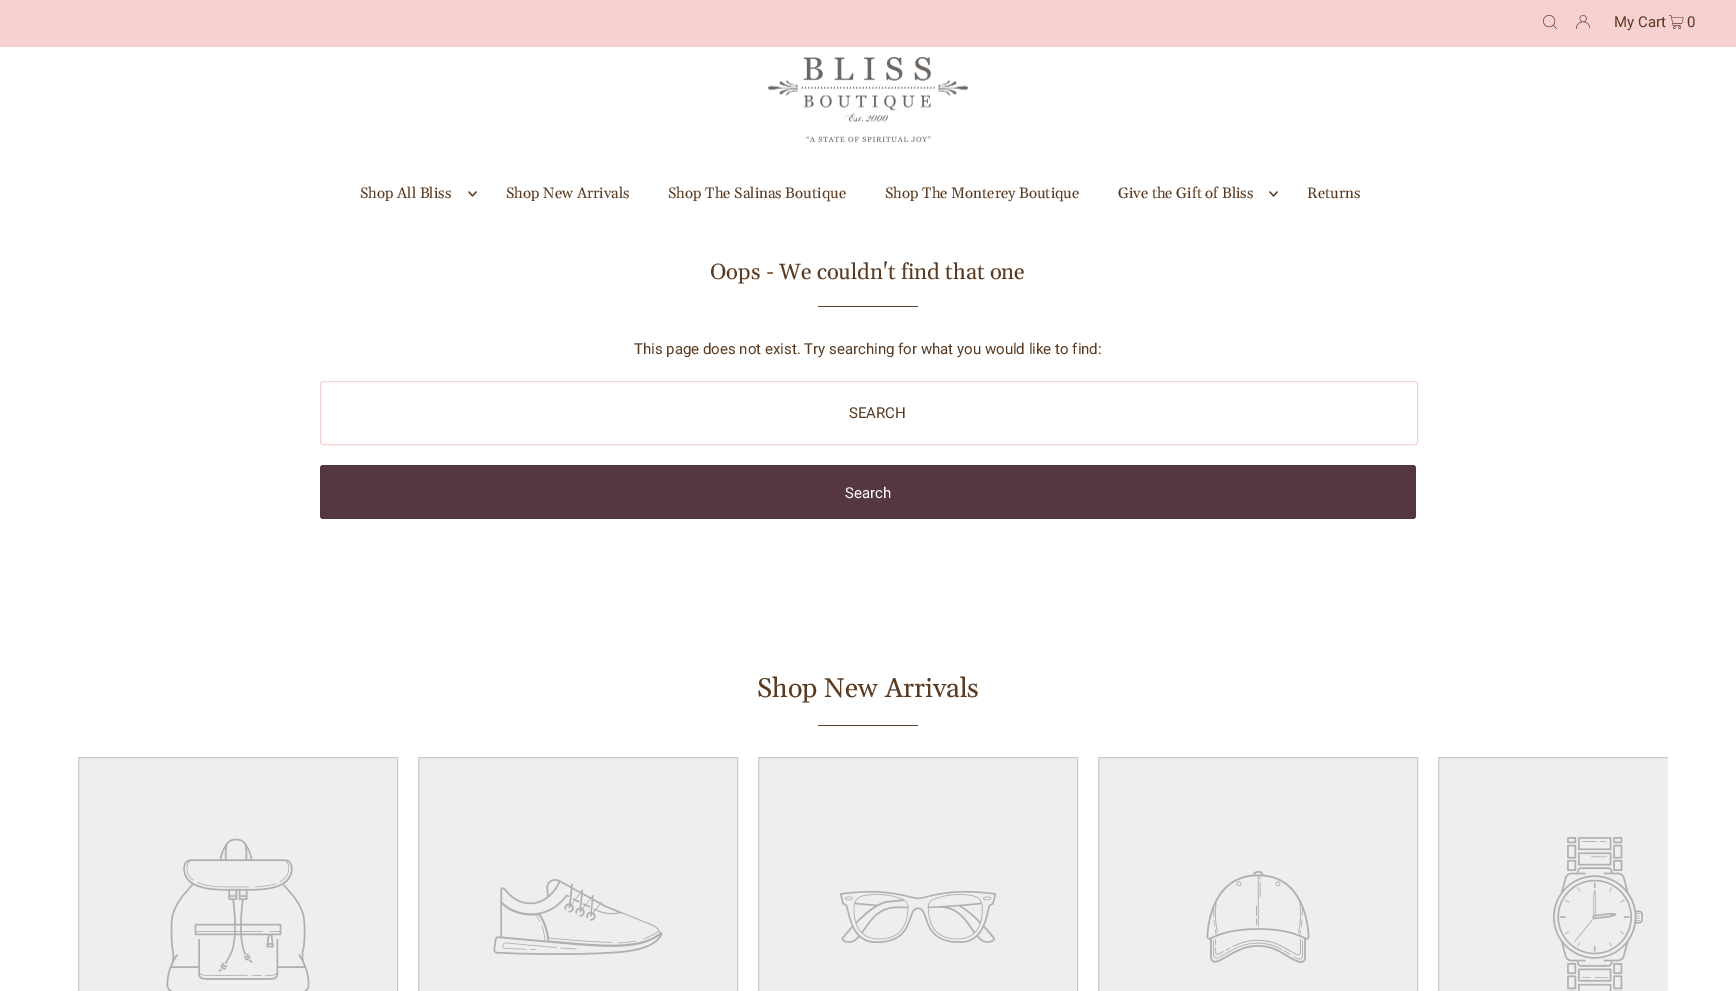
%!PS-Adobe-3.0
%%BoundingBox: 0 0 1736 991
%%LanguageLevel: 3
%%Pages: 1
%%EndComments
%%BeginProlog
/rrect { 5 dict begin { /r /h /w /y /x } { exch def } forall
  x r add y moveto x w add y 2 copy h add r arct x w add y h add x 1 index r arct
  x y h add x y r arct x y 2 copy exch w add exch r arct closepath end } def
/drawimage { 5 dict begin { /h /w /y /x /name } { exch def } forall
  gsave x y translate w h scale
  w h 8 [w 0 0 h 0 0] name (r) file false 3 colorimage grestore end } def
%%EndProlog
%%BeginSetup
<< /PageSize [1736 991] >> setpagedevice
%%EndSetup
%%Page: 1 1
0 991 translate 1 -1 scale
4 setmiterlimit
1 setgray
0 0 1736 991 rectfill
0.965 0.82 0.82 setrgbcolor
0 0 1736 47 rectfill
(images/1.raw) 1543 15 14 14 drawimage
(images/2.raw) 1576 15 14 14 drawimage
(images/3.raw) 1669 15 15 14 drawimage
(images/4.raw) 768 57 200 85 drawimage
(images/5.raw) 468 191 9 6 drawimage
(images/5.raw) 1269 191 9 6 drawimage
0.353 0.231 0.129 setrgbcolor
818 306 100 1 rectfill
0.965 0.82 0.82 setrgbcolor
320.5 381.5 1097 63 2.5 rrect stroke
0.333 0.216 0.263 setrgbcolor
320 465 1096 54 3 rrect fill
0.353 0.231 0.129 setrgbcolor
818 725 100 1 rectfill
0.933 setgray
newpath 78.5 757.5 moveto 397.5 757.5 lineto 397.5 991.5 lineto 78.5 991.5 lineto closepath gsave fill grestore
0.8 setgray
stroke
(images/6.raw) 166 838 144 153 drawimage
0.933 setgray
newpath 418.5 757.5 moveto 737.5 757.5 lineto 737.5 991.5 lineto 418.5 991.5 lineto closepath gsave fill grestore
0.8 setgray
stroke
(images/7.raw) 493 879 170 76 drawimage
0.933 setgray
newpath 758.5 757.5 moveto 1077.5 757.5 lineto 1077.5 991.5 lineto 758.5 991.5 lineto closepath gsave fill grestore
0.8 setgray
stroke
(images/8.raw) 840 891 157 52 drawimage
0.933 setgray
newpath 1098.5 757.5 moveto 1417.5 757.5 lineto 1417.5 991.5 lineto 1098.5 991.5 lineto closepath gsave fill grestore
0.8 setgray
stroke
(images/9.raw) 1206 871 104 92 drawimage
0.933 setgray
1439 758 229 233 rectfill
gsave
68 756 1600 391 rectclip
0.8 setgray
1438.5 757.5 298 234 rectstroke
grestore
(images/10.raw) 1553 837 90 154 drawimage
/Roboto-Regular [15 0 0 -15 0 0] selectfont
0.353 0.231 0.129 setrgbcolor
1614 27 moveto (My Cart) show
1687 27 moveto (0) show
/Gelasio-Regular [15 0 0 -15 0 0] selectfont
360 198 moveto (Shop All Bliss) show
506 198 moveto (Shop New Arrivals) show
668 198 moveto (Shop The Salinas Boutique) show
885 198 moveto (Shop The Monterey Boutique) show
1118 198 moveto (Give the Gift of Bliss) show
1307 198 moveto (Returns) show
/Gelasio-Regular [22 0 0 -22 0 0] selectfont
710 279 moveto (Oops - We couldn't find that one) show
/Roboto-Regular [15 0 0 -15 0 0] selectfont
634 354 moveto (This page does not exist. Try searching for what you would like to find:) show
849 418 moveto (SEARCH) show
1 setgray
845 498 moveto (Search) show
/Gelasio-Regular [27 0 0 -27 0 0] selectfont
0.353 0.231 0.129 setrgbcolor
757 697 moveto (Shop New Arrivals) show
showpage
%%EOF
